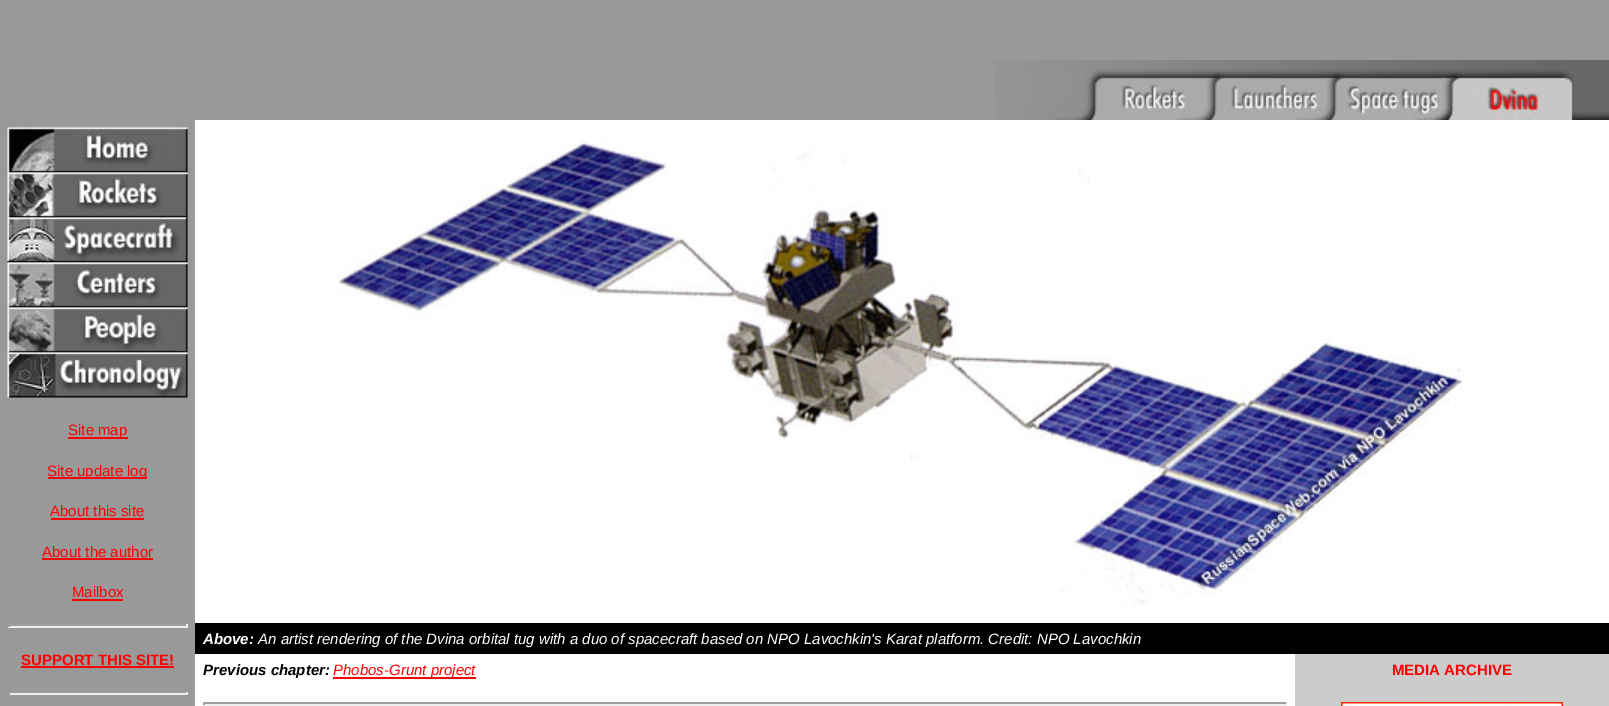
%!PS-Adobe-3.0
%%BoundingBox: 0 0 1609 706
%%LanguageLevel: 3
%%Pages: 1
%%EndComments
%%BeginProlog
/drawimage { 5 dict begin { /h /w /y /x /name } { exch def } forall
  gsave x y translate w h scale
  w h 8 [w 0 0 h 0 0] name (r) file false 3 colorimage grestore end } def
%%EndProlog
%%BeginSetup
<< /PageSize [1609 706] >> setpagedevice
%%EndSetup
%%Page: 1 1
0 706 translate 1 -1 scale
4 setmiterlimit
1 setgray
0 0 1609 706 rectfill
0.6 setgray
0 0 1609 60 rectfill
0 60 994 60 rectfill
(images/1.raw) 994 60 615 60 drawimage
0 120 195 586 rectfill
(images/2.raw) 7 127 181 46 drawimage
(images/3.raw) 7 172 181 46 drawimage
(images/4.raw) 7 217 181 46 drawimage
(images/5.raw) 7 262 181 46 drawimage
(images/6.raw) 7 307 181 46 drawimage
(images/7.raw) 7 352 181 46 drawimage
1 0 0 setrgbcolor
68 437 60 2 rectfill
48 477 99 2 rectfill
51 518 93 2 rectfill
42 558 111 2 rectfill
72 599 51 2 rectfill
0.624 setgray
8 624 180 2 rectfill
0.933 setgray
186 624 2 3 rectfill
8 626 180 2 rectfill
0.624 setgray
8 624 2 3 rectfill
1 0 0 setrgbcolor
21 666 153 2 rectfill
0.624 setgray
8 692 180 1 rectfill
0.933 setgray
186 692 2 3 rectfill
8 693 180 2 rectfill
0.624 setgray
8 692 2 3 rectfill
(images/8.raw) 338 140 1125 468 drawimage
0 setgray
195 623 1414 31 rectfill
1 0 0 setrgbcolor
333 677 143 2 rectfill
0.624 setgray
203 702 1084 2 rectfill
0.933 setgray
1286 702 2 3 rectfill
203 704 1084 2 rectfill
0.624 setgray
203 702 2 3 rectfill
0.8 setgray
1295 654 314 52 rectfill
(images/9.raw) 1341 702 222 4 drawimage
/LiberationSans-Regular [15 0 0 -15 0 0] selectfont
1 0 0 setrgbcolor
68 435 moveto (Site map) show
47 476 moveto (Site update log) show
50 516 moveto (About this site) show
42 557 moveto (About the author) show
72 597 moveto (Mailbox) show
/LiberationSans-Bold [15 0 0 -15 0 0] selectfont
21 665 moveto (SUPPORT THIS SITE!) show
/LiberationSans-BoldItalic [15 0 0 -15 0 0] selectfont
1 setgray
203 644 moveto (Above:) show
/LiberationSans-Italic [15 0 0 -15 0 0] selectfont
258 644 moveto (An artist rendering of the Dvina orbital tug with a duo of spacecraft based on NPO Lavochkin's Karat platform. Credit: NPO Lavochkin) show
/LiberationSans-BoldItalic [15 0 0 -15 0 0] selectfont
0 setgray
203 675 moveto (Previous chapter:) show
/LiberationSans-Italic [15 0 0 -15 0 0] selectfont
1 0 0 setrgbcolor
333 675 moveto (Phobos-Grunt project) show
/LiberationSans-Bold [15 0 0 -15 0 0] selectfont
1392 675 moveto (MEDIA ARCHIVE) show
showpage
%%EOF
